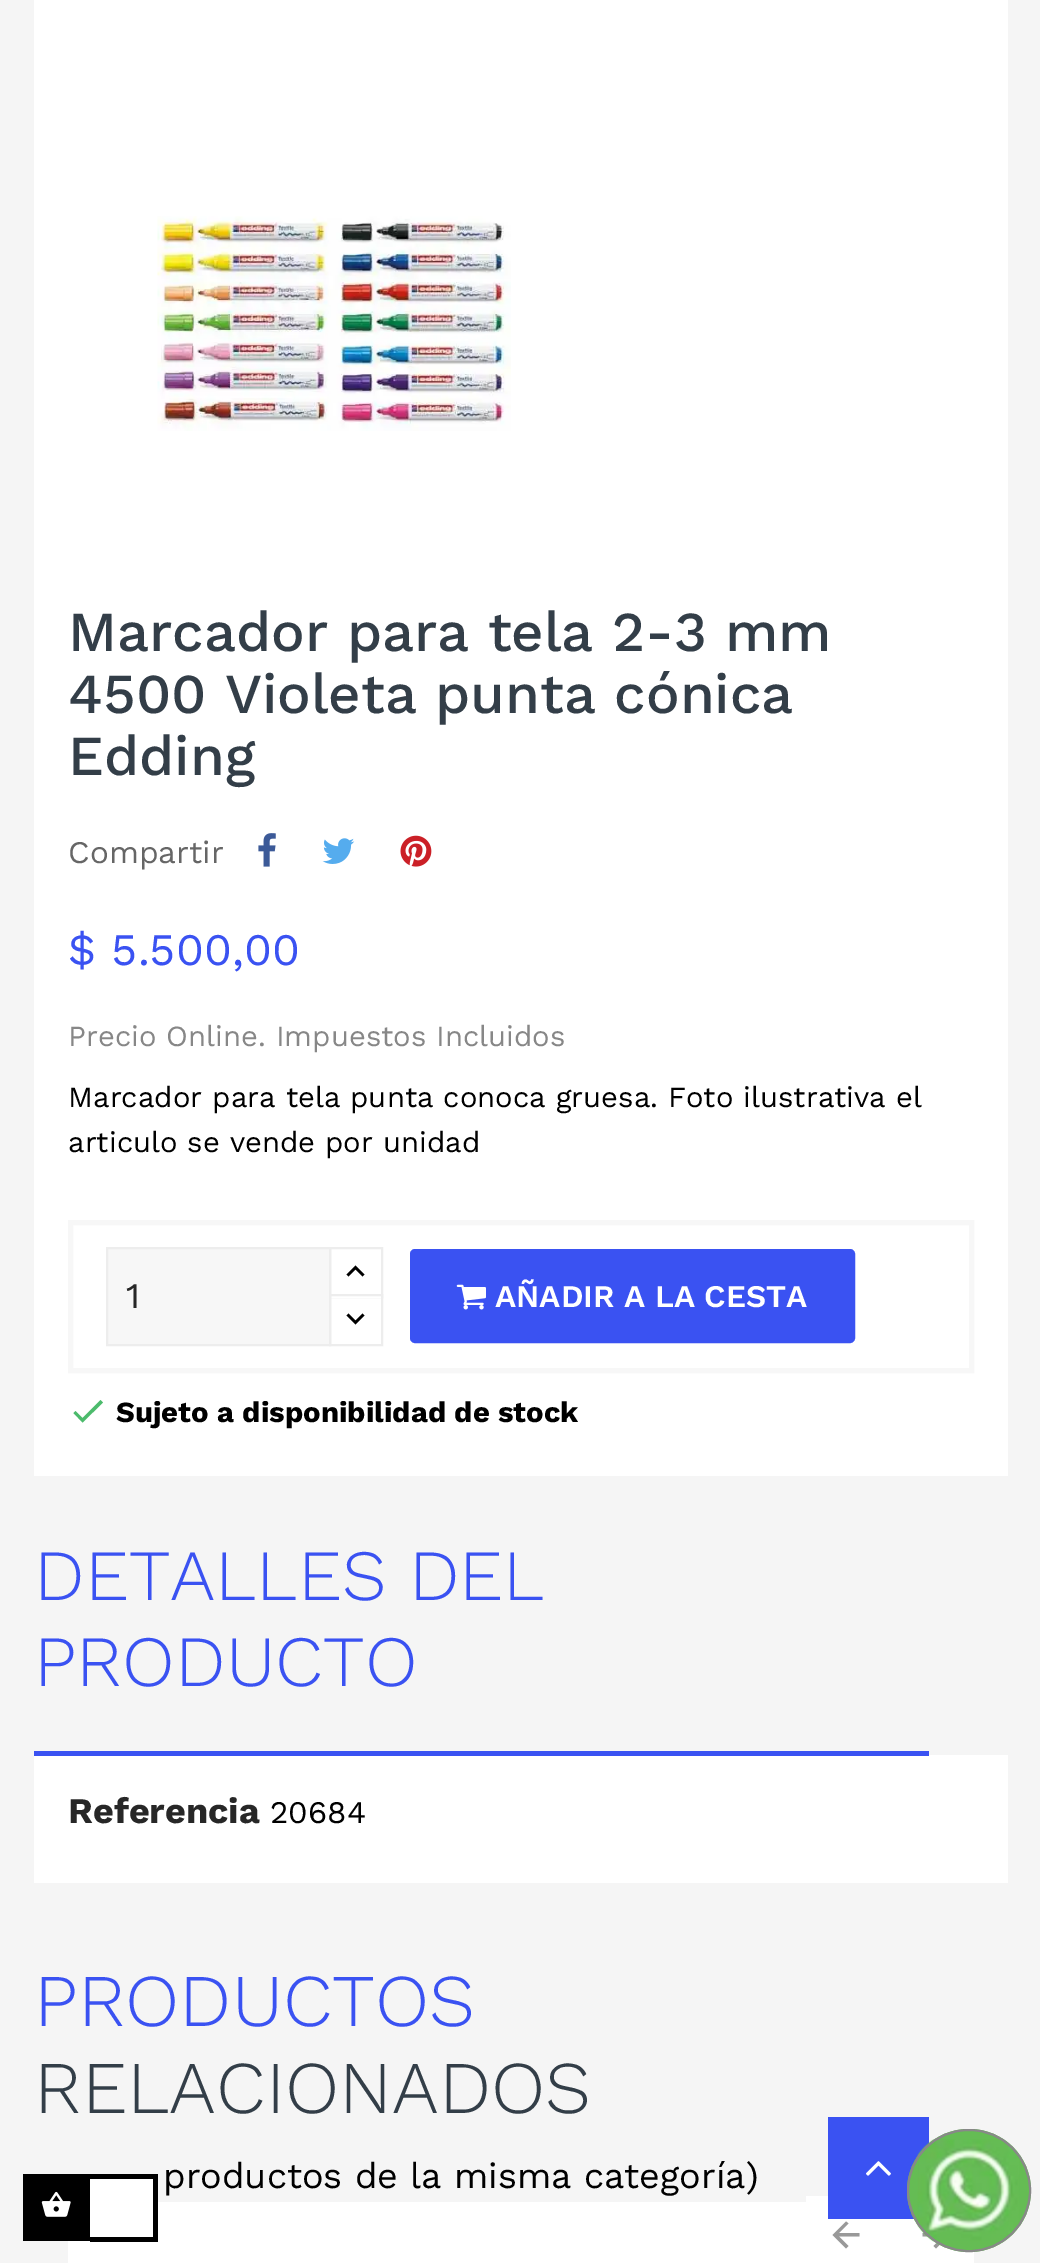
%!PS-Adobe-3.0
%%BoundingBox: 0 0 1040 2263
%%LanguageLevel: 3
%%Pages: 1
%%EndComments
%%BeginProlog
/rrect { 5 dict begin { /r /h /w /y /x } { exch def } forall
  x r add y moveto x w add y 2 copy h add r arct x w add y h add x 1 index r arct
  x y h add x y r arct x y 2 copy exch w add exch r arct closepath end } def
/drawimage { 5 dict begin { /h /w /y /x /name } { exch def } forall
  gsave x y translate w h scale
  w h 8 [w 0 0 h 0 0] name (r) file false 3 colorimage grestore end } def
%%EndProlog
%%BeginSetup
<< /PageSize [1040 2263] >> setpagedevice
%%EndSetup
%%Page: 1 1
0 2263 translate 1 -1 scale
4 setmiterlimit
0.961 setgray
0 0 1040 2263 rectfill
1 setgray
34 0 974 1476 rectfill
(images/1.raw) 157 216 354 215 drawimage
(images/2.raw) 258 833 18 34 drawimage
(images/3.raw) 322 838 33 26 drawimage
(images/4.raw) 400 835 32 32 drawimage
0.969 setgray
5 setlinewidth
70.5 1222.5 901 148 rectstroke
0.929 setgray
2 setlinewidth
330 1248 52 49 rectstroke
1 setgray
331 1296 50 2 rectfill
0.929 setgray
330 1295 52 50 rectstroke
0.969 setgray
newpath 107 1248 moveto 330 1248 lineto 330 1345 lineto 107 1345 lineto closepath gsave fill grestore
0.929 setgray
stroke
0 setgray
newpath 355.5 1265.5 moveto 364.5 1274.5 lineto 362.5 1276.5 lineto 355.5 1269.5 lineto 348.5 1276.5 lineto 346.5 1274.5 lineto closepath fill
newpath 362.5 1313.5 moveto 364.5 1315.5 lineto 355.5 1324.5 lineto 346.5 1315.5 lineto 348.5 1313.5 lineto 355.5 1320.5 lineto closepath fill
0.227 0.322 0.949 setrgbcolor
411 1250 443 92 4 rrect gsave fill grestore
stroke
(images/5.raw) 456 1284 30 26 drawimage
0.298 0.733 0.424 setrgbcolor
newpath 82.5 1418 moveto 100.5 1400 lineto 103 1402.5 lineto 82.5 1422.5 lineto 73.5 1413 lineto 75.5 1411 lineto closepath fill
1 setgray
34 1755 974 128 rectfill
0.227 0.322 0.949 setrgbcolor
34 1751 895 5 rectfill
1 setgray
806 2196 78 7 rectfill
68 2203 828 60 rectfill
0.6 setgray
newpath 859.5 2233 moveto 859.5 2236.5 lineto 839 2236.5 lineto 848.5 2246 lineto 846 2248.5 lineto 832.5 2235 lineto 846 2221.5 lineto 848.5 2223.5 lineto 839 2233 lineto closepath fill
1 setgray
896 2219 78 44 rectfill
0.6 setgray
newpath 936 2221.5 moveto 949.5 2235 lineto 936 2248.5 lineto 933.5 2246 lineto 943 2236.5 lineto 922.5 2236.5 lineto 922.5 2233 lineto 943 2233 lineto 933.5 2223.5 lineto closepath fill
1 setgray
158 2202 648 1 rectfill
0.227 0.322 0.949 setrgbcolor
828 2117 101 102 rectfill
(images/6.raw) 866 2161 25 15 drawimage
0.396 0.737 0.329 setrgbcolor
907 2129 124 123 61.5 rrect fill
(images/7.raw) 917 2139 103 103 drawimage
0.533 setgray
908 2130 122 121 60.5 rrect stroke
0 setgray
23 2174 135 67 rectfill
(images/8.raw) 41 2191 30 26 drawimage
1 setgray
90 2179 63 58 rectfill
0 setgray
90 2241 68 1 rectfill
/WorkSans-Medium [56.25 0 0 -56.25 0 0] selectfont
0.2 0.243 0.282 setrgbcolor
68 651 moveto (Marcador para tela 2-3 mm) show
68 713 moveto (4500 Violeta punta cónica) show
68 775 moveto (Edding) show
/WorkSans-Regular [31.5 0 0 -31.5 0 0] selectfont
0.4 setgray
68 863 moveto (Compartir) show
/WorkSans-Regular [45 0 0 -45 0 0] selectfont
0.227 0.322 0.949 setrgbcolor
68 965 moveto ($ 5.500,00) show
/WorkSans-Regular [29.25 0 0 -29.25 0 0] selectfont
0.529 setgray
68 1046 moveto (Precio Online. Impuestos Incluidos) show
0 setgray
68 1107 moveto (Marcador para tela punta conoca gruesa. Foto ilustrativa el) show
68 1152 moveto (articulo se vende por unidad) show
/WorkSans-Regular [36 0 0 -36 0 0] selectfont
0.153 setgray
126 1308 moveto (1) show
/WorkSans-SemiBold [31.5 0 0 -31.5 0 0] selectfont
1 setgray
495 1307 moveto (AÑADIR A LA CESTA) show
/WorkSans-Bold [29.25 0 0 -29.25 0 0] selectfont
0 setgray
116 1422 moveto (Sujeto a disponibilidad de stock) show
/WorkSans-Light [72 0 0 -72 0 0] selectfont
0.227 0.322 0.949 setrgbcolor
34 1600 moveto (DETALLES DEL) show
34 1686 moveto (PRODUCTO) show
/WorkSans-Bold [36 0 0 -36 0 0] selectfont
0.153 setgray
68 1823 moveto (Referencia) show
/WorkSans-Regular [31.5 0 0 -31.5 0 0] selectfont
0 setgray
270 1823 moveto (20684) show
/WorkSans-Light [74.25 0 0 -74.25 0 0] selectfont
0.227 0.322 0.949 setrgbcolor
34 2026 moveto (PRODUCTOS) show
0.2 0.243 0.282 setrgbcolor
34 2113 moveto (RELACIONADOS) show
/WorkSans-Regular [36 0 0 -36 0 0] selectfont
0 setgray
163 2188 moveto (productos de la misma categoría\)) show
showpage
%%EOF
